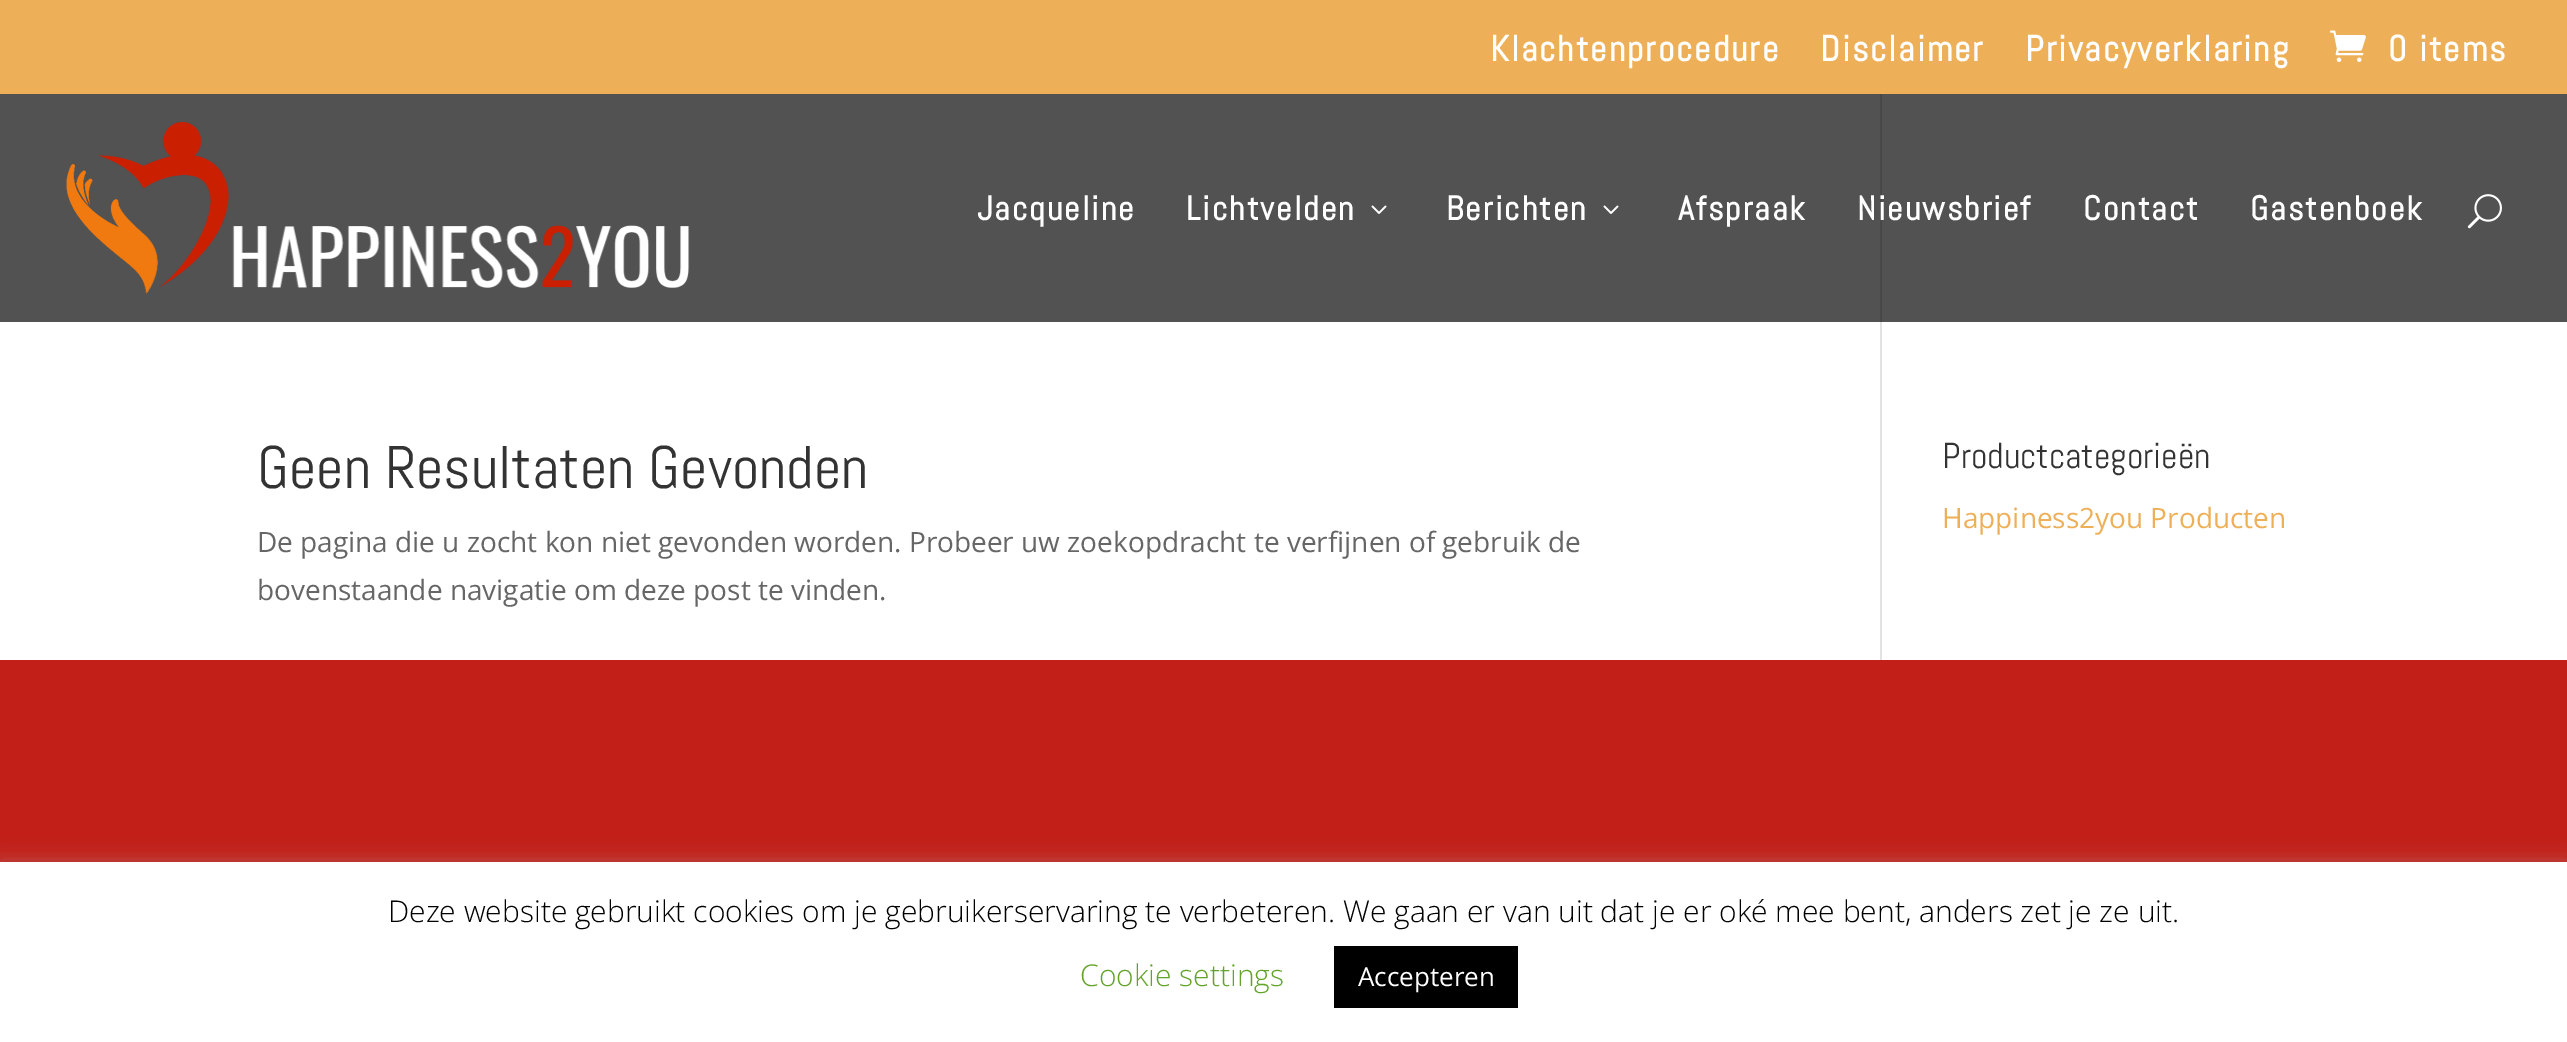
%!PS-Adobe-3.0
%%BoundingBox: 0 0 2567 1042
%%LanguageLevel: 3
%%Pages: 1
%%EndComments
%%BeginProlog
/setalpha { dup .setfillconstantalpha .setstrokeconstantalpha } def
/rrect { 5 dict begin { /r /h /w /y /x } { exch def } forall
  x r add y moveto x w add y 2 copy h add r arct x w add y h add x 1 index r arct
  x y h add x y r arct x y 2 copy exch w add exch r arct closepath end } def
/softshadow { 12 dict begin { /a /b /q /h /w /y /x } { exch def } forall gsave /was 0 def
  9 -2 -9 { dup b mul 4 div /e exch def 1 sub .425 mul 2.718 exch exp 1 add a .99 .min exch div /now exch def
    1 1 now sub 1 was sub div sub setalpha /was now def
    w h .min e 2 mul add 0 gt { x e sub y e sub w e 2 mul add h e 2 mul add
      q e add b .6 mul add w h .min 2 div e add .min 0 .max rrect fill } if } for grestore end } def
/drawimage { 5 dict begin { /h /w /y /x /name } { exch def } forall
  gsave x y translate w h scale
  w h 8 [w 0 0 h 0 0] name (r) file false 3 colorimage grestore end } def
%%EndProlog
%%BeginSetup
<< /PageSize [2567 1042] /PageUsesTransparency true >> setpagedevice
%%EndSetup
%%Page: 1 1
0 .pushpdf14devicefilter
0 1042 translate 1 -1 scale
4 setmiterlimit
1 setgray
0 0 2567 1042 rectfill
0.322 setgray
0 94 2567 228 rectfill
0.929 0.69 0.349 setrgbcolor
0 0 2567 94 rectfill
(images/1.raw) 2329 30 37 32 drawimage
(images/2.raw) 66 122 624 172 drawimage
(images/3.raw) 1371 205 16 9 drawimage
(images/3.raw) 1603 205 16 9 drawimage
(images/4.raw) 2467 194 35 35 drawimage
0.886 setgray
1880 322 2 338 rectfill
0.282 setgray
1880 94 2 228 rectfill
0.757 0.122 0.094 setrgbcolor
0 660 2567 202 rectfill
0.675 0.671 0.671 setrgbcolor
0 860 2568 180 0 10 0.3 softshadow
1 setgray
0 862 2567 180 rectfill
0 setgray
1334 946 184 62 rectfill
/Abel-Bold [36 0 0 -36 0 0] selectfont
1 setgray
1490 61 moveto 2 0 (Klachtenprocedure) ashow
1820 61 moveto 2 0 (Disclaimer) ashow
2025 61 moveto 2 0 (Privacyverklaring) ashow
2388 61 moveto 2 0 (0 items) ashow
/Abel-Bold [34 0 0 -34 0 0] selectfont
977 220 moveto 2 0 (Jacqueline) ashow
1186 220 moveto 2 0 (Lichtvelden) ashow
1446 220 moveto 2 0 (Berichten) ashow
1678 220 moveto 2 0 (Afspraak) ashow
1857 220 moveto 2 0 (Nieuwsbrief) ashow
2083 220 moveto 2 0 (Contact) ashow
2250 220 moveto 2 0 (Gastenboek) ashow
/Abel-Regular [60 0 0 -60 0 0] selectfont
0.2 setgray
257 488 moveto (Geen Resultaten Gevonden) show
/OpenSans-Regular [28 0 0 -28 0 0] selectfont
0.4 setgray
257 552 moveto (De pagina die u zocht kon niet gevonden worden. Probeer uw zoekopdracht te verfijnen of gebruik de) show
257 600 moveto (bovenstaande navigatie om deze post te vinden.) show
/Abel-Regular [36 0 0 -36 0 0] selectfont
0.2 setgray
1942 468 moveto (Productcategorieën) show
/OpenSans-Regular [28 0 0 -28 0 0] selectfont
0.929 0.69 0.349 setrgbcolor
1942 528 moveto (Happiness2you Producten) show
/OpenSans-Light [30 0 0 -30 0 0] selectfont
0 setgray
388 922 moveto (Deze website gebruikt cookies om je gebruikerservaring te verbeteren. We gaan er van uit dat je er oké mee bent, anders zet je ze uit.) show
0.384 0.639 0.161 setrgbcolor
1080 986 moveto (Cookie settings) show
/OpenSans-Regular [26 0 0 -26 0 0] selectfont
1 setgray
1358 986 moveto (Accepteren) show
.poppdf14devicefilter showpage
%%EOF
